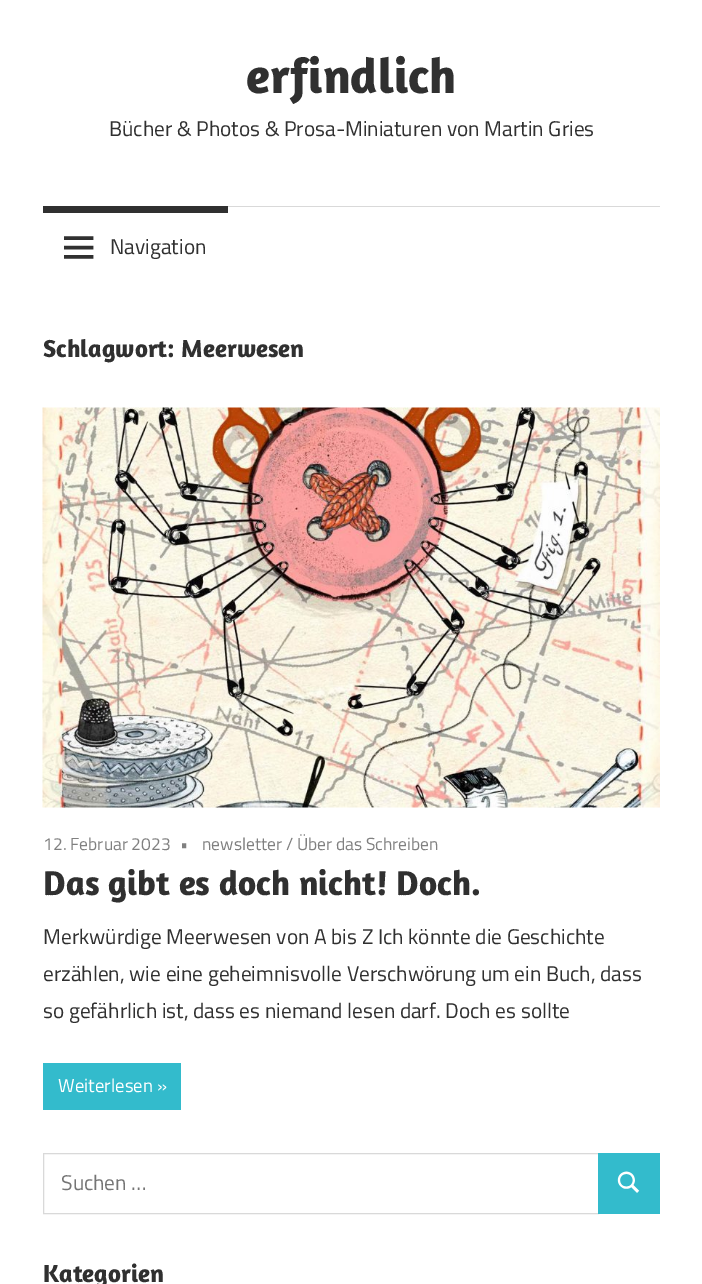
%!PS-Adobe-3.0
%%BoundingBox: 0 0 702 1284
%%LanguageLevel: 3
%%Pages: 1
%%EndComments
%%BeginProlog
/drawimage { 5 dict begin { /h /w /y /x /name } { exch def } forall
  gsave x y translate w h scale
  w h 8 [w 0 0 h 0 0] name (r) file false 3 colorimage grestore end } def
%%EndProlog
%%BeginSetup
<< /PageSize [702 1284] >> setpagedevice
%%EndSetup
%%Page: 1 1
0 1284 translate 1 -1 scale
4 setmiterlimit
1 setgray
0 0 702 1284 rectfill
0.851 setgray
228 206 432 1 rectfill
0.188 setgray
43 206 185 7 rectfill
(images/1.raw) 64 236 30 23 drawimage
(images/2.raw) 42 407 618 401 drawimage
0.2 0.733 0.8 setrgbcolor
43 1063 138 47 rectfill
0.851 setgray
43.5 1153.5 555 60 rectstroke
0.2 0.733 0.8 setrgbcolor
598 1153 62 61 rectfill
(images/3.raw) 617 1171 23 22 drawimage
/Amaranth-Bold [50 0 0 -50 0 0] selectfont
0.188 setgray
246 93 moveto (erfindlich) show
/TitilliumWeb-Regular [21.25 0 0 -21.25 0 0] selectfont
109 136 moveto (Bücher & Photos & Prosa-Miniaturen von Martin Gries) show
110 254 moveto (Navigation) show
/Amaranth-Bold [25 0 0 -25 0 0] selectfont
43 357 moveto (Schlagwort: Meerwesen) show
/TitilliumWeb-Regular [17.5 0 0 -17.5 0 0] selectfont
0.502 setgray
43 850 moveto (12. Februar 2023) show
180 850 moveto (•) show
202 850 moveto (newsletter / Über das Schreiben) show
/Amaranth-Bold [35 0 0 -35 0 0] selectfont
0.188 setgray
43 895 moveto (Das gibt es doch nicht! Doch.) show
/TitilliumWeb-Regular [21.25 0 0 -21.25 0 0] selectfont
43 944 moveto (Merkwürdige Meerwesen von A bis Z Ich könnte die Geschichte) show
43 981 moveto (erzählen, wie eine geheimnisvolle Verschwörung um ein Buch, dass) show
43 1018 moveto (so gefährlich ist, dass es niemand lesen darf. Doch es sollte) show
/TitilliumWeb-Regular [18.75 0 0 -18.75 0 0] selectfont
1 setgray
58 1092 moveto (Weiterlesen ») show
/TitilliumWeb-Regular [21.25 0 0 -21.25 0 0] selectfont
0.459 setgray
61 1190 moveto (Suchen …) show
/Amaranth-Bold [25 0 0 -25 0 0] selectfont
0.188 setgray
43 1282 moveto (Kategorien) show
showpage
%%EOF
